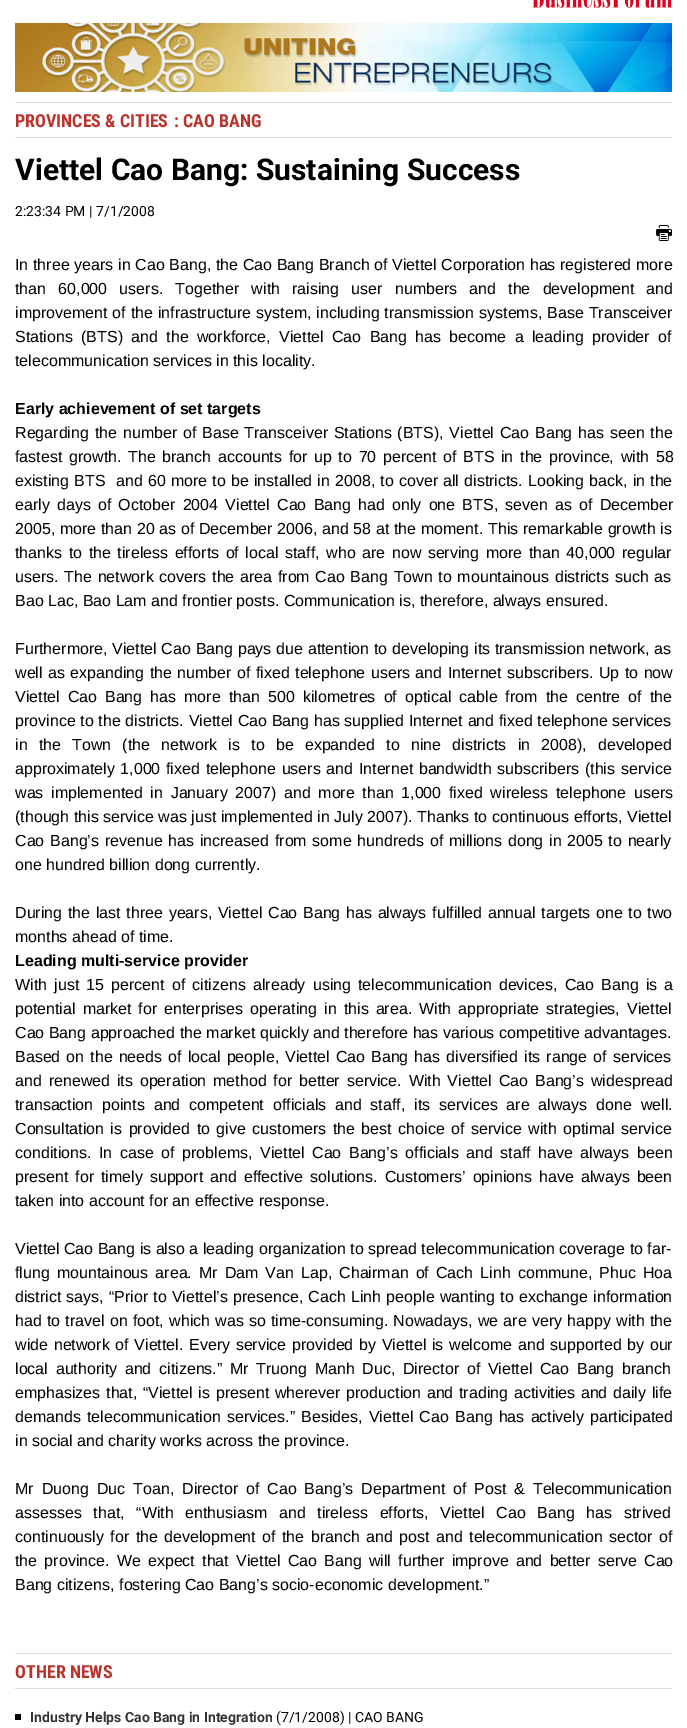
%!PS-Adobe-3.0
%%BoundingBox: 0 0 687 1728
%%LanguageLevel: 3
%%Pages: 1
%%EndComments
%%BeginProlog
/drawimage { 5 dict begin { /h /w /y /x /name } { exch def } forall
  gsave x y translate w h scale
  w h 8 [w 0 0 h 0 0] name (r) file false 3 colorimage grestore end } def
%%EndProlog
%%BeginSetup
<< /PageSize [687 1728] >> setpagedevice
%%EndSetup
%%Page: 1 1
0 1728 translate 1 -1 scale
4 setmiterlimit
1 setgray
0 0 687 1728 rectfill
(images/1.raw) 532 0 140 8 drawimage
(images/2.raw) 15 23 657 69 drawimage
0.871 setgray
15 102 657 1 rectfill
15 137 657 1 rectfill
(images/3.raw) 656 225 16 16 drawimage
15 1653 657 1 rectfill
15 1688 657 1 rectfill
0 setgray
15 1714 6 6 rectfill
/RobotoCondensed-Bold [18 0 0 -18 0 0] selectfont
0.733 0.204 0.173 setrgbcolor
15 127 moveto (PROVINCES & CITIES) show
174 127 moveto (: CAO BANG) show
/Roboto-Bold [30 0 0 -30 0 0] selectfont
0 setgray
15 180 moveto (Viettel Cao Bang: Sustaining Success) show
/Roboto-Regular [14 0 0 -14 0 0] selectfont
15 216 moveto (2:23:34 PM | 7/1/2008) show
/LiberationSans-Regular [16 0 0 -16 0 0] selectfont
15 270 moveto 0.25 0 32 (In three years in Cao Bang, the Cao Bang Branch of Viettel Corporation has registered more) widthshow
15 294 moveto 7.75 0 32 (than 60,000 users. Together with raising user numbers and the development and) widthshow
15 318 moveto 0.5 0 32 (improvement of the infrastructure system, including transmission systems, Base Transceiver) widthshow
15 342 moveto 3.9 0 32 (Stations \(BTS\) and the workforce, Viettel Cao Bang has become a leading provider of) widthshow
15 366 moveto (telecommunication services in this locality.) show
/LiberationSans-Bold [16 0 0 -16 0 0] selectfont
15 414 moveto (Early achievement of set targets) show
/LiberationSans-Regular [16 0 0 -16 0 0] selectfont
15 438 moveto 1.4 0 32 (Regarding the number of Base Transceiver Stations \(BTS\), Viettel Cao Bang has seen the) widthshow
15 462 moveto 2.25 0 32 (fastest growth. The branch accounts for up to 70 percent of BTS in the province, with 58) widthshow
15 486 moveto 0.7 0 32 (existing BTS  and 60 more to be installed in 2008, to cover all districts. Looking back, in the) widthshow
15 510 moveto 2.75 0 32 (early days of October 2004 Viettel Cao Bang had only one BTS, seven as of December) widthshow
15 534 moveto 0.25 0 32 (2005, more than 20 as of December 2006, and 58 at the moment. This remarkable growth is) widthshow
15 558 moveto 2.1 0 32 (thanks to the tireless efforts of local staff, who are now serving more than 40,000 regular) widthshow
15 582 moveto 1.25 0 32 (users. The network covers the area from Cao Bang Town to mountainous districts such as) widthshow
15 606 moveto (Bao Lac, Bao Lam and frontier posts. Communication is, therefore, always ensured.) show
15 654 moveto 0.3 0 32 (Furthermore, Viettel Cao Bang pays due attention to developing its transmission network, as) widthshow
15 678 moveto 1 0 32 (well as expanding the number of fixed telephone users and Internet subscribers. Up to now) widthshow
15 702 moveto 3.6 0 32 (Viettel Cao Bang has more than 500 kilometres of optical cable from the centre of the) widthshow
15 726 moveto 0.25 0 32 (province to the districts. Viettel Cao Bang has supplied Internet and fixed telephone services) widthshow
15 750 moveto 6.75 0 32 (in the Town \(the network is to be expanded to nine districts in 2008\), developed) widthshow
15 774 moveto 1.25 0 32 (approximately 1,000 fixed telephone users and Internet bandwidth subscribers \(this service) widthshow
15 798 moveto 3.25 0 32 (was implemented in January 2007\) and more than 1,000 fixed wireless telephone users) widthshow
15 822 moveto 0.1 0 32 (\(though this service was just implemented in July 2007\). Thanks to continuous efforts, Viettel) widthshow
15 846 moveto 1.25 0 32 (Cao Bang’s revenue has increased from some hundreds of millions dong in 2005 to nearly) widthshow
15 870 moveto (one hundred billion dong currently.) show
15 918 moveto 1.25 0 32 (During the last three years, Viettel Cao Bang has always fulfilled annual targets one to two) widthshow
15 942 moveto (months ahead of time.) show
/LiberationSans-Bold [16 0 0 -16 0 0] selectfont
15 966 moveto (Leading multi-service provider) show
/LiberationSans-Regular [16 0 0 -16 0 0] selectfont
15 990 moveto 2.75 0 32 (With just 15 percent of citizens already using telecommunication devices, Cao Bang is a) widthshow
15 1014 moveto 2.6 0 32 (potential market for enterprises operating in this area. With appropriate strategies, Viettel) widthshow
15 1038 moveto (Cao Bang approached the market quickly and therefore has various competitive advantages.) show
15 1062 moveto 1.6 0 32 (Based on the needs of local people, Viettel Cao Bang has diversified its range of services) widthshow
15 1086 moveto 2.4 0 32 (and renewed its operation method for better service. With Viettel Cao Bang’s widespread) widthshow
15 1110 moveto 4.4 0 32 (transaction points and competent officials and staff, its services are always done well.) widthshow
15 1134 moveto 2.1 0 32 (Consultation is provided to give customers the best choice of service with optimal service) widthshow
15 1158 moveto 3.1 0 32 (conditions. In case of problems, Viettel Cao Bang’s officials and staff have always been) widthshow
15 1182 moveto 2.5 0 32 (present for timely support and effective solutions. Customers’ opinions have always been) widthshow
15 1206 moveto (taken into account for an effective response.) show
15 1254 moveto (Viettel Cao Bang is also a leading organization to spread telecommunication coverage to far-) show
15 1278 moveto 2.6 0 32 (flung mountainous area. Mr Dam Van Lap, Chairman of Cach Linh commune, Phuc Hoa) widthshow
15 1302 moveto 0.75 0 32 (district says, “Prior to Viettel’s presence, Cach Linh people wanting to exchange information) widthshow
15 1326 moveto 0.75 0 32 (had to travel on foot, which was so time-consuming. Nowadays, we are very happy with the) widthshow
15 1350 moveto 1.25 0 32 (wide network of Viettel. Every service provided by Viettel is welcome and supported by our) widthshow
15 1374 moveto 3.25 0 32 (local authority and citizens.” Mr Truong Manh Duc, Director of Viettel Cao Bang branch) widthshow
15 1398 moveto 1.25 0 32 (emphasizes that, “Viettel is present wherever production and trading activities and daily life) widthshow
15 1422 moveto 1.75 0 32 (demands telecommunication services.” Besides, Viettel Cao Bang has actively participated) widthshow
15 1446 moveto (in social and charity works across the province.) show
15 1494 moveto 3.5 0 32 (Mr Duong Duc Toan, Director of Cao Bang’s Department of Post & Telecommunication) widthshow
15 1518 moveto 7.25 0 32 (assesses that, “With enthusiasm and tireless efforts, Viettel Cao Bang has strived) widthshow
15 1542 moveto 2 0 32 (continuously for the development of the branch and post and telecommunication sector of) widthshow
15 1566 moveto 2.75 0 32 (the province. We expect that Viettel Cao Bang will further improve and better serve Cao) widthshow
15 1590 moveto (Bang citizens, fostering Cao Bang’s socio-economic development.”) show
/RobotoCondensed-Bold [18 0 0 -18 0 0] selectfont
0.733 0.204 0.173 setrgbcolor
15 1678 moveto (OTHER NEWS) show
/Roboto-Bold [14 0 0 -14 0 0] selectfont
0.2 setgray
30 1722 moveto (Industry Helps Cao Bang in Integration) show
/Roboto-Regular [14 0 0 -14 0 0] selectfont
0 setgray
276 1722 moveto (\(7/1/2008\) | CAO BANG) show
showpage
%%EOF
